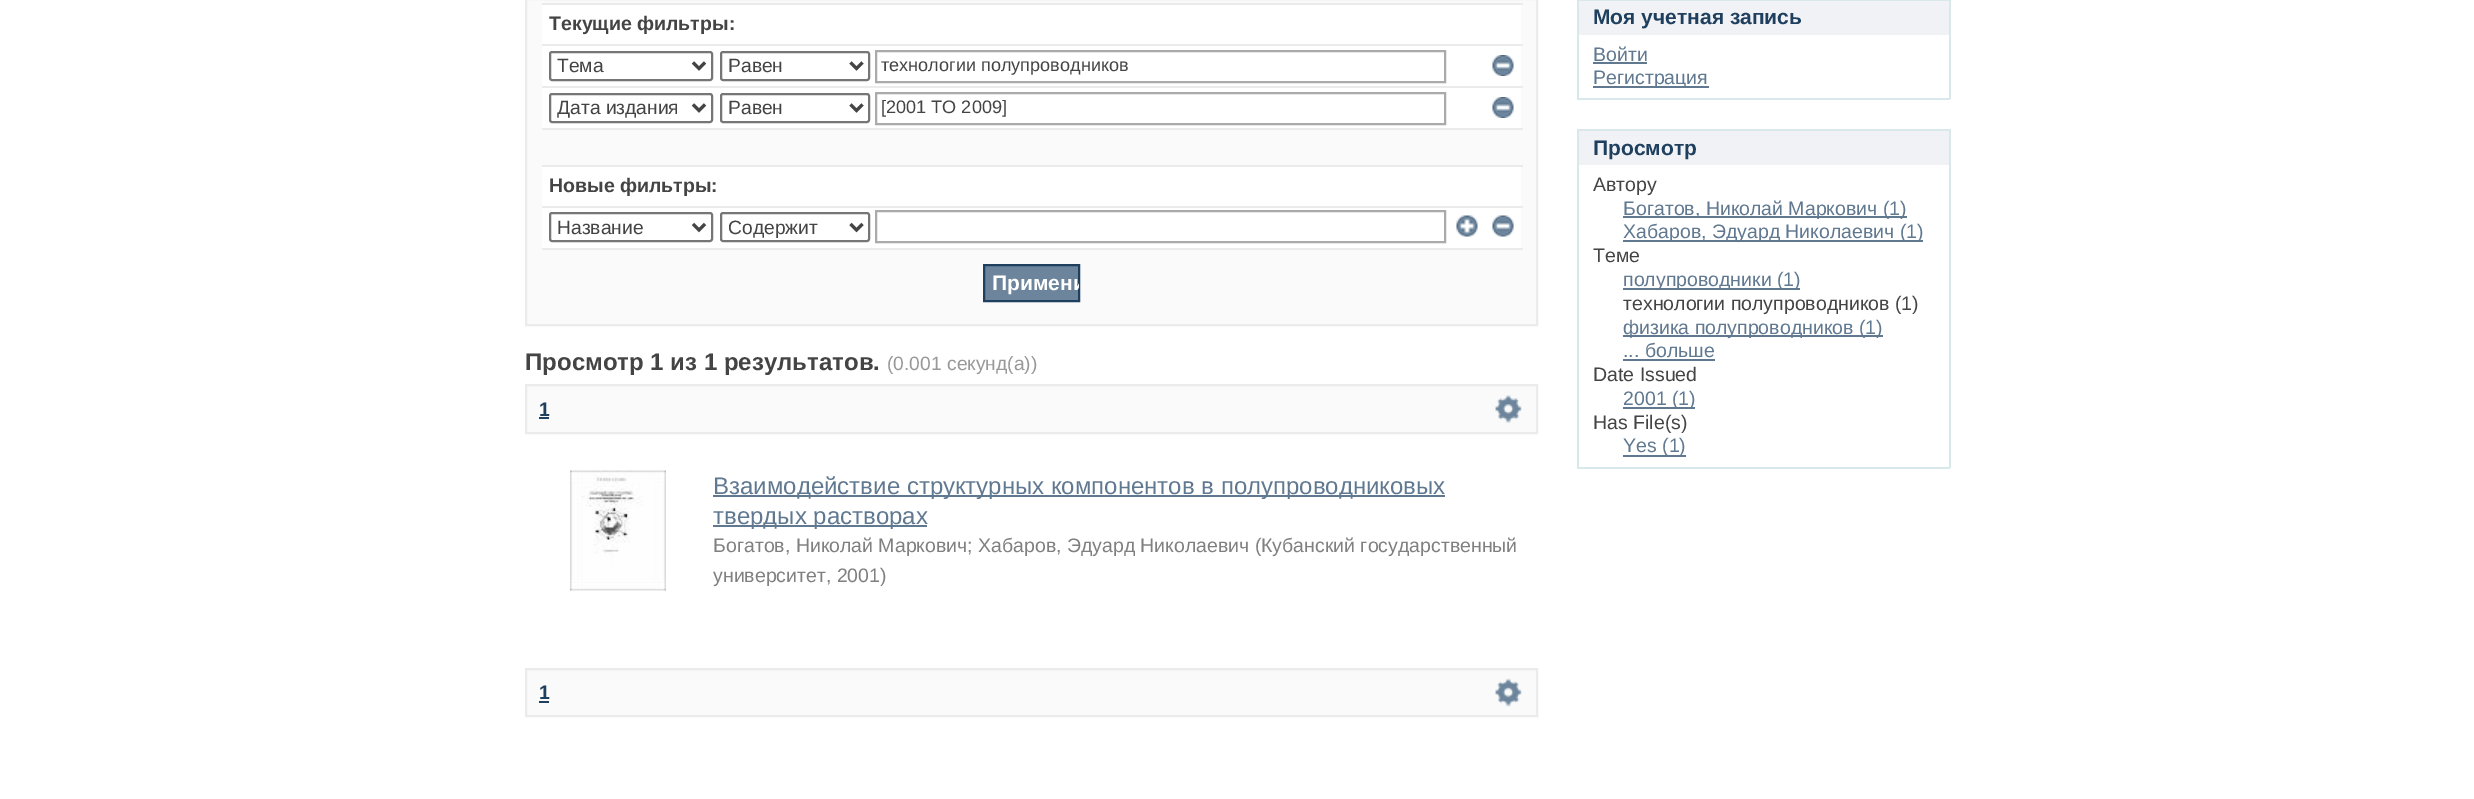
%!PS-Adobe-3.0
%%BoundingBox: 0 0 2474 799
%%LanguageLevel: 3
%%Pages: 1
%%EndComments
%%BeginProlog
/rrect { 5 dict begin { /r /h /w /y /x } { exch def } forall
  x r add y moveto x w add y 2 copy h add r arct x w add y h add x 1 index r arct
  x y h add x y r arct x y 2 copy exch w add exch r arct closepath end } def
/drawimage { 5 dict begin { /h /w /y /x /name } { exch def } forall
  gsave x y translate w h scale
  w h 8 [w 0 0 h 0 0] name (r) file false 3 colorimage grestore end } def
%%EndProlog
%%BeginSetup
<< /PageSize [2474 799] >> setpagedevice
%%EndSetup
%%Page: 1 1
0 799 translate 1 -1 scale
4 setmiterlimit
1 setgray
0 0 2474 799 rectfill
0.98 setgray
newpath 526 -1 moveto 1537 -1 lineto 1537 325 lineto 526 325 lineto closepath gsave fill grestore
0.922 setgray
2 setlinewidth
stroke
1 setgray
542 5 979 243 rectfill
0.922 setgray
542 3 981 2 rectfill
542 44 981 2 rectfill
0.463 setgray
550 52 162 28 2 rrect stroke
0.267 setgray
3 setlinewidth
newpath 693 62.5 moveto 699 68.5 lineto 705 62.5 lineto stroke
0.463 setgray
2 setlinewidth
721 52 148 28 2 rrect stroke
0.267 setgray
3 setlinewidth
newpath 850.5 62.5 moveto 856.5 68.5 lineto 862.5 62.5 lineto stroke
0.667 setgray
2 setlinewidth
876 51 569 31 rectstroke
(images/1.raw) 1492 55 22 21 drawimage
0.922 setgray
542 86 981 2 rectfill
0.463 setgray
550 94 162 28 2 rrect stroke
0.267 setgray
3 setlinewidth
newpath 693 104.5 moveto 699 110.5 lineto 705 104.5 lineto stroke
0.463 setgray
2 setlinewidth
721 94 148 28 2 rrect stroke
0.267 setgray
3 setlinewidth
newpath 850.5 104.5 moveto 856.5 110.5 lineto 862.5 104.5 lineto stroke
0.667 setgray
2 setlinewidth
876 93 569 31 rectstroke
(images/1.raw) 1492 97 22 21 drawimage
0.98 setgray
542 130 979 35 rectfill
0.922 setgray
542 128 981 2 rectfill
542 165 981 2 rectfill
542 206 981 2 rectfill
0.463 setgray
550 213 162 28 2 rrect stroke
0.267 setgray
3 setlinewidth
newpath 693 224 moveto 699 230 lineto 705 224 lineto stroke
0.463 setgray
2 setlinewidth
721 213 148 28 2 rrect stroke
0.267 setgray
3 setlinewidth
newpath 850.5 224 moveto 856.5 230 lineto 862.5 224 lineto stroke
0.667 setgray
2 setlinewidth
876 211 569 31 rectstroke
(images/2.raw) 1456 215 22 22 drawimage
(images/3.raw) 1492 215 22 22 drawimage
0.922 setgray
542 248 981 2 rectfill
0.427 0.522 0.612 setrgbcolor
newpath 984 265 moveto 1079 265 lineto 1079 301 lineto 984 301 lineto closepath gsave fill grestore
0.122 0.247 0.369 setrgbcolor
stroke
0.98 setgray
newpath 526 385 moveto 1537 385 lineto 1537 433 lineto 526 433 lineto closepath gsave fill grestore
0.922 setgray
stroke
0.122 0.247 0.369 setrgbcolor
539 417 10 2 rectfill
(images/4.raw) 1495 395 27 28 drawimage
(images/5.raw) 570 470 96 121 drawimage
0.376 0.471 0.565 setrgbcolor
713 495 732 2 rectfill
713 525 214 2 rectfill
0.98 setgray
newpath 526 669 moveto 1537 669 lineto 1537 716 lineto 526 716 lineto closepath gsave fill grestore
0.922 setgray
stroke
0.122 0.247 0.369 setrgbcolor
539 701 10 2 rectfill
(images/6.raw) 1495 678 27 29 drawimage
0.941 0.949 0.961 setrgbcolor
1579 1 370 34 rectfill
0.847 0.91 0.922 setrgbcolor
1577 0 373 1 rectfill
1949 0 2 99 rectfill
1577 0 2 35 rectfill
1577 98 373 2 rectfill
1577 35 2 64 rectfill
0.376 0.471 0.565 setrgbcolor
1593 62 54 2 rectfill
1593 86 116 2 rectfill
0.941 0.949 0.961 setrgbcolor
1579 131 370 34 rectfill
0.847 0.91 0.922 setrgbcolor
1577 129 373 2 rectfill
1949 129 2 339 rectfill
1577 129 2 36 rectfill
1577 467 373 2 rectfill
1577 165 2 303 rectfill
0.376 0.471 0.565 setrgbcolor
1623 216 284 2 rectfill
1623 240 300 2 rectfill
1623 288 177 2 rectfill
1623 335 260 2 rectfill
1623 359 92 2 rectfill
1623 407 72 2 rectfill
1623 455 63 2 rectfill
/LiberationSans-Bold [19.5 0 0 -19.5 0 0] selectfont
0.267 setgray
549 30 moveto (Текущие фильтры:) show
/LiberationSans-Regular [19.25 0 0 -19.25 0 0] selectfont
557 72 moveto (Тема) show
728 72 moveto (Равен) show
/LiberationSans-Regular [18.1 0 0 -18.1 0 0] selectfont
881 71 moveto (технологии полупроводников) show
gsave
557 95 130 25 rectclip
/LiberationSans-Regular [19.25 0 0 -19.25 0 0] selectfont
557 114 moveto (Дата издания) show
grestore
/LiberationSans-Regular [19.25 0 0 -19.25 0 0] selectfont
728 114 moveto (Равен) show
/LiberationSans-Regular [18.1 0 0 -18.1 0 0] selectfont
881 113 moveto ([2001 TO 2009]) show
/LiberationSans-Bold [19.5 0 0 -19.5 0 0] selectfont
549 192 moveto (Новые фильтры:) show
/LiberationSans-Regular [19.25 0 0 -19.25 0 0] selectfont
557 234 moveto (Название) show
728 234 moveto (Содержит) show
gsave
984 266 95 34 rectclip
/LiberationSans-Bold [21 0 0 -21 0 0] selectfont
1 setgray
992 290 moveto (Примени) show
grestore
/LiberationSans-Bold [24 0 0 -24 0 0] selectfont
525 370 moveto (Просмотр 1 из 1 результатов.) show
/LiberationSans-Regular [19.25 0 0 -19.25 0 0] selectfont
0.6 setgray
887 370 moveto (\(0.001 секунд\(а\)\)) show
/LiberationSans-Bold [19.5 0 0 -19.5 0 0] selectfont
0.122 0.247 0.369 setrgbcolor
539 416 moveto (1) show
/LiberationSans-Regular [24 0 0 -24 0 0] selectfont
0.376 0.471 0.565 setrgbcolor
713 494 moveto (Взаимодействие структурных компонентов в полупроводниковых) show
713 524 moveto (твердых растворах) show
/LiberationSans-Regular [19.5 0 0 -19.5 0 0] selectfont
0.502 setgray
713 552 moveto (Богатов, Николай Маркович; Хабаров, Эдуард Николаевич \(Кубанский государственный) show
713 582 moveto (университет, 2001\)) show
/LiberationSans-Bold [19.5 0 0 -19.5 0 0] selectfont
0.122 0.247 0.369 setrgbcolor
539 699 moveto (1) show
/LiberationSans-Bold [21 0 0 -21 0 0] selectfont
1593 24 moveto (Моя учетная запись) show
/LiberationSans-Regular [19.5 0 0 -19.5 0 0] selectfont
0.376 0.471 0.565 setrgbcolor
1593 61 moveto (Войти) show
1593 84 moveto (Регистрация) show
/LiberationSans-Bold [21 0 0 -21 0 0] selectfont
0.122 0.247 0.369 setrgbcolor
1593 155 moveto (Просмотр) show
/LiberationSans-Regular [19.5 0 0 -19.5 0 0] selectfont
0.267 setgray
1593 191 moveto (Автору) show
0.376 0.471 0.565 setrgbcolor
1623 215 moveto (Богатов, Николай Маркович \(1\)) show
1623 238 moveto (Хабаров, Эдуард Николаевич \(1\)) show
0.267 setgray
1593 262 moveto (Теме) show
0.376 0.471 0.565 setrgbcolor
1623 286 moveto (полупроводники \(1\)) show
0.267 setgray
1623 310 moveto (технологии полупроводников \(1\)) show
0.376 0.471 0.565 setrgbcolor
1623 334 moveto (физика полупроводников \(1\)) show
1623 357 moveto (... больше) show
0.267 setgray
1593 381 moveto (Date Issued) show
0.376 0.471 0.565 setrgbcolor
1623 405 moveto (2001 \(1\)) show
0.267 setgray
1593 429 moveto (Has File\(s\)) show
0.376 0.471 0.565 setrgbcolor
1623 452 moveto (Yes \(1\)) show
showpage
%%EOF
